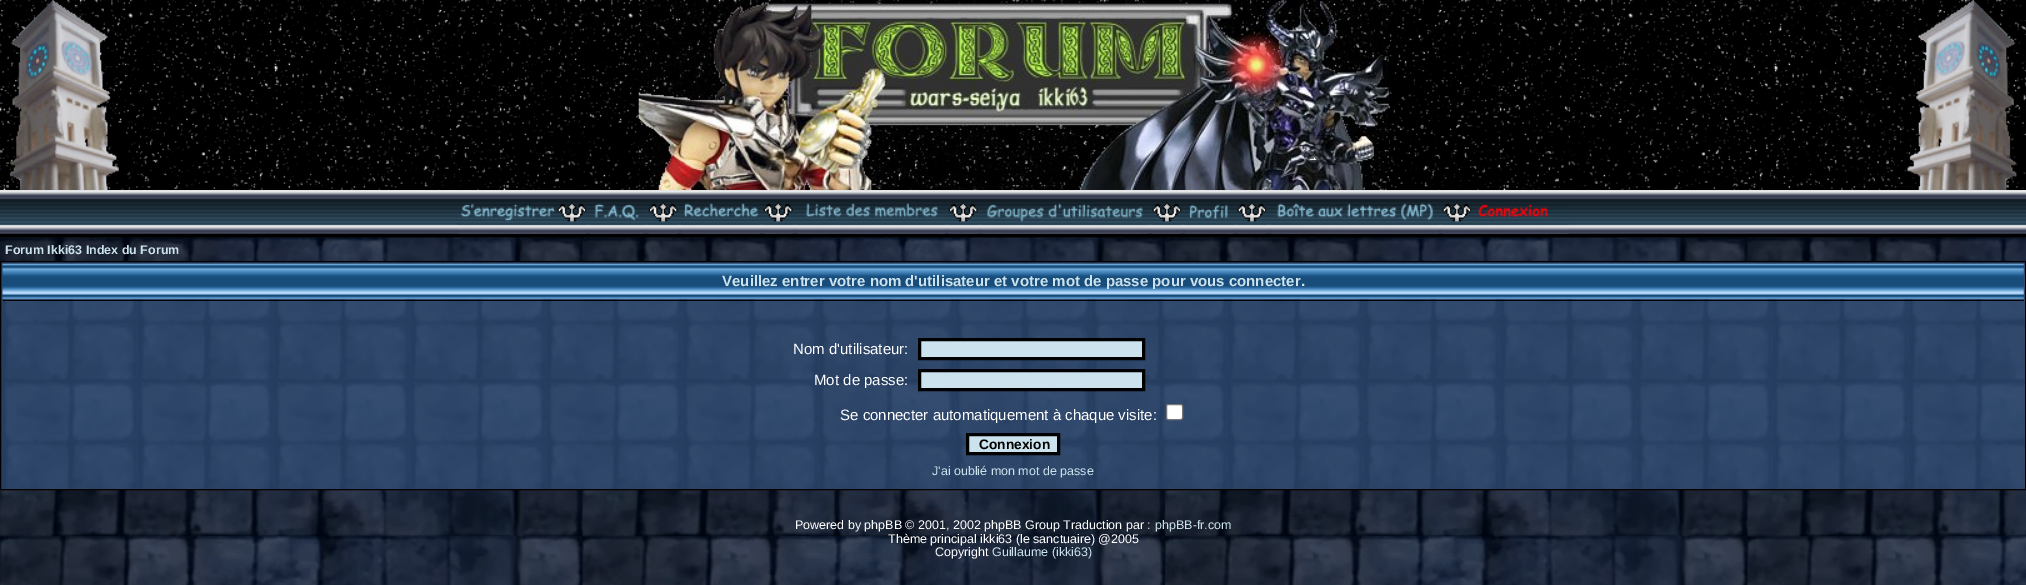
%!PS-Adobe-3.0
%%BoundingBox: 0 0 2026 585
%%LanguageLevel: 3
%%Pages: 1
%%EndComments
%%BeginProlog
/rrect { 5 dict begin { /r /h /w /y /x } { exch def } forall
  x r add y moveto x w add y 2 copy h add r arct x w add y h add x 1 index r arct
  x y h add x y r arct x y 2 copy exch w add exch r arct closepath end } def
/drawimage { 5 dict begin { /h /w /y /x /name } { exch def } forall
  gsave x y translate w h scale
  w h 8 [w 0 0 h 0 0] name (r) file false 3 colorimage grestore end } def
%%EndProlog
%%BeginSetup
<< /PageSize [2026 585] >> setpagedevice
%%EndSetup
%%Page: 1 1
0 585 translate 1 -1 scale
4 setmiterlimit
1 setgray
0 0 2026 585 rectfill
(images/1.raw) 0 237 2026 348 drawimage
(images/2.raw) 0 0 2026 190 drawimage
(images/3.raw) 9 0 110 190 drawimage
(images/4.raw) 638 0 751 190 drawimage
(images/5.raw) 1907 0 110 190 drawimage
(images/6.raw) 0 190 2026 48 drawimage
(images/7.raw) 457 203 101 31 drawimage
(images/8.raw) 557 202 30 32 drawimage
(images/9.raw) 590 203 54 31 drawimage
(images/10.raw) 648 202 30 32 drawimage
(images/11.raw) 681 203 79 31 drawimage
(images/10.raw) 763 202 30 32 drawimage
(images/12.raw) 797 203 148 31 drawimage
(images/13.raw) 948 202 30 32 drawimage
(images/14.raw) 981 203 167 31 drawimage
(images/15.raw) 1152 202 30 32 drawimage
(images/16.raw) 1185 204 49 30 drawimage
(images/17.raw) 1237 202 30 32 drawimage
(images/18.raw) 1271 203 168 31 drawimage
(images/17.raw) 1442 202 30 32 drawimage
(images/19.raw) 1471 204 98 30 drawimage
(images/20.raw) 1 262 2024 227 drawimage
0 setgray
0.5 261.5 2025 228 rectstroke
(images/21.raw) 2 263 2022 36 drawimage
3 300 2021 1 rectfill
0.8 0.89 0.933 setrgbcolor
newpath 919.5 339.5 moveto 1143.5 339.5 lineto 1143.5 358.5 lineto 919.5 358.5 lineto closepath gsave fill grestore
0 setgray
3 setlinewidth
stroke
0.8 0.89 0.933 setrgbcolor
newpath 919.5 370.5 moveto 1143.5 370.5 lineto 1143.5 389.5 lineto 919.5 389.5 lineto closepath gsave fill grestore
0 setgray
stroke
1 setgray
1166.5 404.5 16 15 2 rrect gsave fill grestore
0.463 setgray
1 setlinewidth
stroke
0.8 0.89 0.933 setrgbcolor
newpath 967.5 434.5 moveto 1058.5 434.5 lineto 1058.5 453.5 lineto 967.5 453.5 lineto closepath gsave fill grestore
0 setgray
3 setlinewidth
stroke
/LiberationSans-Bold [12.5 0 0 -12.5 0 0] selectfont
0.8 0.89 0.933 setrgbcolor
5 254 moveto (Forum Ikki63 Index du Forum) show
/LiberationSans-Bold [15 0 0 -15 0 0] selectfont
722 286 moveto (Veuillez entrer votre nom d'utilisateur et votre mot de passe pour vous connecter.) show
/LiberationSans-Regular [15 0 0 -15 0 0] selectfont
1 setgray
793 354 moveto (Nom d'utilisateur:) show
814 385 moveto (Mot de passe:) show
840 420 moveto (Se connecter automatiquement à chaque visite:) show
/LiberationSans-Bold [13.75 0 0 -13.75 0 0] selectfont
0 setgray
979 449 moveto (Connexion) show
/LiberationSans-Regular [12.5 0 0 -12.5 0 0] selectfont
0.8 0.89 0.933 setrgbcolor
932 475 moveto (J'ai oublié mon mot de passe) show
1 setgray
795 529 moveto (Powered by phpBB © 2001, 2002 phpBB Group Traduction par :) show
0.8 0.89 0.933 setrgbcolor
1155 529 moveto (phpBB-fr.com) show
1 setgray
888 543 moveto (Thème principal ikki63 \(le sanctuaire\) @2005) show
935 556 moveto (Copyright) show
0.8 0.89 0.933 setrgbcolor
992 556 moveto (Guillaume \(ikki63\)) show
showpage
%%EOF
